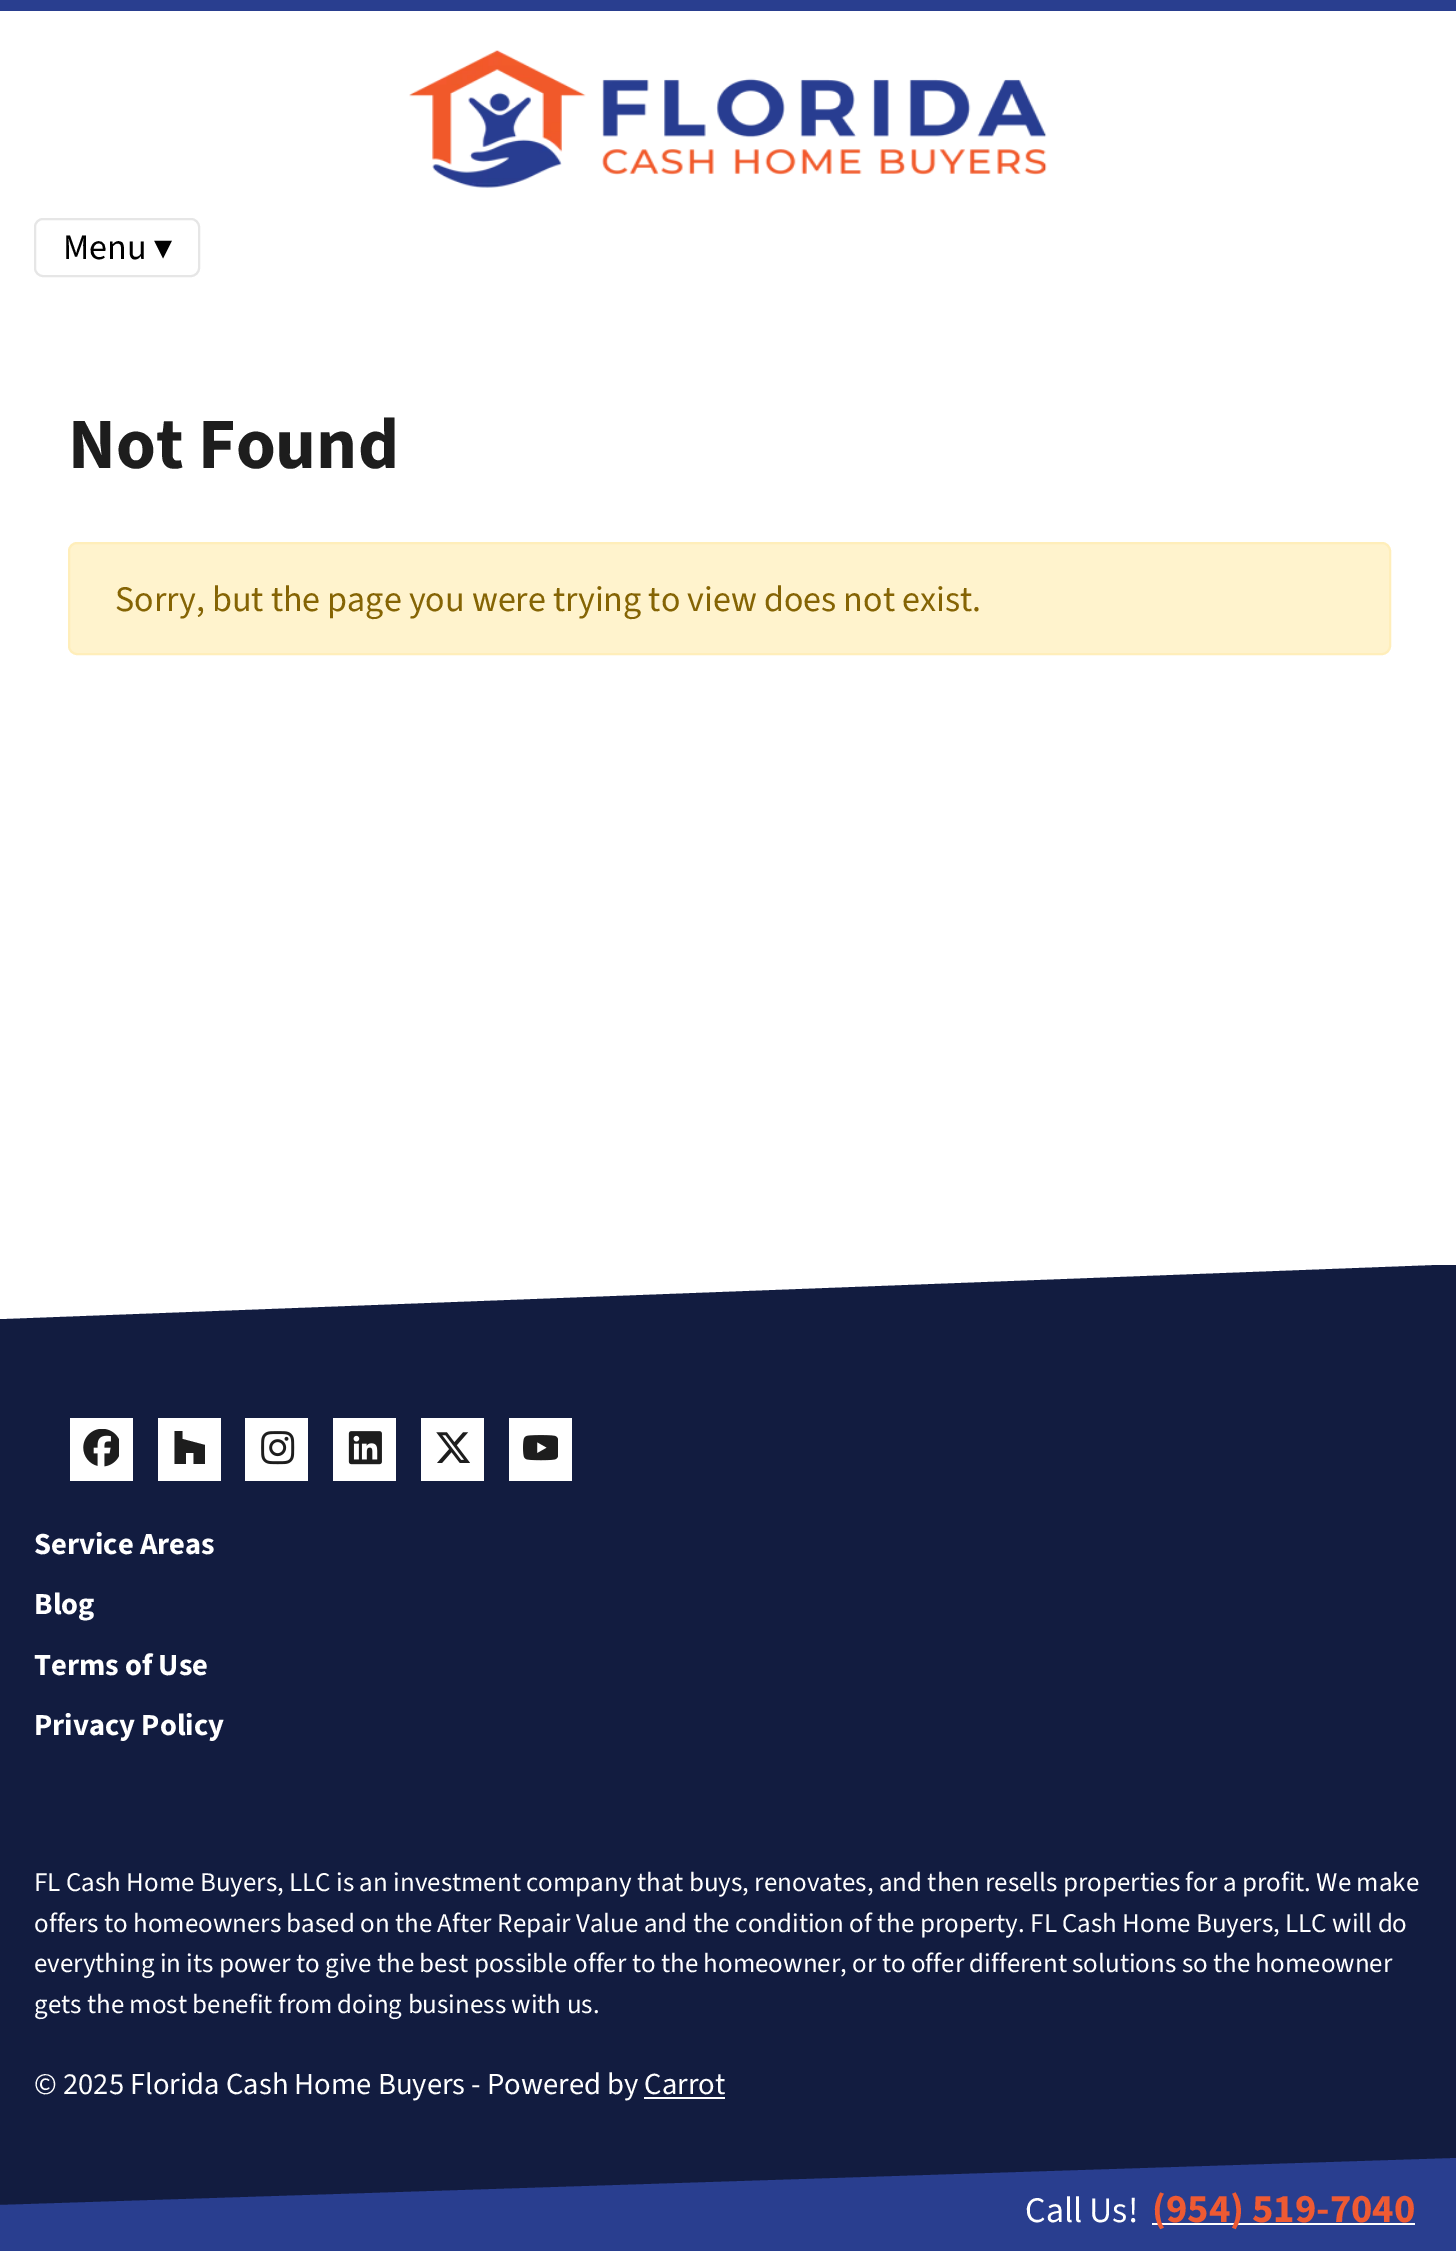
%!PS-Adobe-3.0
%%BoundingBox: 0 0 1456 2251
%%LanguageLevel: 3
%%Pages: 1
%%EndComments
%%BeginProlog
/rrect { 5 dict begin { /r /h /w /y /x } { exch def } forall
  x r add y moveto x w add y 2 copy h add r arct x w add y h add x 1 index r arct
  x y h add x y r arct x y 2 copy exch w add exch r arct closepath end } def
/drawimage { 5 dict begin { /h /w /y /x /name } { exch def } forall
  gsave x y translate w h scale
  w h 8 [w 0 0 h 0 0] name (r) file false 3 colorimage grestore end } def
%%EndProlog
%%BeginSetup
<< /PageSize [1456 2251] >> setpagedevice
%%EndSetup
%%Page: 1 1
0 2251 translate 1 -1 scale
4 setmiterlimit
1 setgray
0 0 1456 2251 rectfill
0.161 0.243 0.561 setrgbcolor
0 0 1456 11 rectfill
(images/1.raw) 409 50 638 138 drawimage
0.902 setgray
2 setlinewidth
35 219 164 57 8 rrect stroke
1 0.953 0.804 setrgbcolor
69 543 1321 111 8 rrect gsave fill grestore
1 0.933 0.729 setrgbcolor
stroke
0.071 0.11 0.251 setrgbcolor
0 1265 1456 940 rectfill
1 setgray
newpath 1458 1264 moveto 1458 1261 lineto 0 1261 lineto 0 1319 lineto closepath fill
70 1418 63 63 rectfill
(images/2.raw) 83 1429 36 38 drawimage
158 1418 63 63 rectfill
0.114 setgray
newpath 193.5 1453 moveto 186 1453 lineto 186 1464 lineto 174.5 1464 lineto 174.5 1431 lineto 182.5 1431 lineto 182.5 1439 lineto 205 1445 lineto 205 1464 lineto 193.5 1464 lineto closepath fill
1 setgray
245 1418 63 63 rectfill
(images/3.raw) 261 1431 34 34 drawimage
333 1418 63 63 rectfill
(images/4.raw) 348 1431 34 34 drawimage
421 1418 63 63 rectfill
(images/5.raw) 436 1432 34 31 drawimage
509 1418 63 63 rectfill
(images/6.raw) 523 1435 35 26 drawimage
644 2097 81 2 rectfill
0.161 0.243 0.561 setrgbcolor
newpath 0 2205 moveto 0 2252 lineto 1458 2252 lineto 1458 2158 lineto closepath fill
1 setgray
1152 2223 263 2 rectfill
/SourceSans3-Regular [36 0 0 -36 0 0] selectfont
0 setgray
63 259 moveto (Menu) show
/DejaVuSans-Regular [36 0 0 -36 0 0] selectfont
154 259 moveto (▾) show
/SourceSans3-Bold [72 0 0 -72 0 0] selectfont
0.114 setgray
68 468 moveto (Not Found) show
/SourceSans3-Regular [36 0 0 -36 0 0] selectfont
0.522 0.392 0.016 setrgbcolor
115 611 moveto (Sorry, but the page you were trying to view does not exist.) show
/SourceSans3-Bold [30.6 0 0 -30.6 0 0] selectfont
1 setgray
34 1554 moveto (Service Areas) show
34 1614 moveto (Blog) show
34 1675 moveto (Terms of Use) show
34 1735 moveto (Privacy Policy) show
/SourceSans3-Regular [27 0 0 -27 0 0] selectfont
34 1891 moveto (FL Cash Home Buyers, LLC is an investment company that buys, renovates, and then resells properties for a profit. We make) show
34 1932 moveto (offers to homeowners based on the After Repair Value and the condition of the property. FL Cash Home Buyers, LLC will do) show
34 1972 moveto (everything in its power to give the best possible offer to the homeowner, or to offer different solutions so the homeowner) show
34 2013 moveto (gets the most benefit from doing business with us.) show
/SourceSans3-Regular [30.6 0 0 -30.6 0 0] selectfont
34 2094 moveto (© 2025 Florida Cash Home Buyers - Powered by Carrot) show
/SourceSans3-Regular [36 0 0 -36 0 0] selectfont
1025 2222 moveto (Call Us!) show
/SourceSans3-Bold [40.5 0 0 -40.5 0 0] selectfont
0.933 0.353 0.2 setrgbcolor
1152 2222 moveto (\(954\) 519-7040) show
showpage
%%EOF
